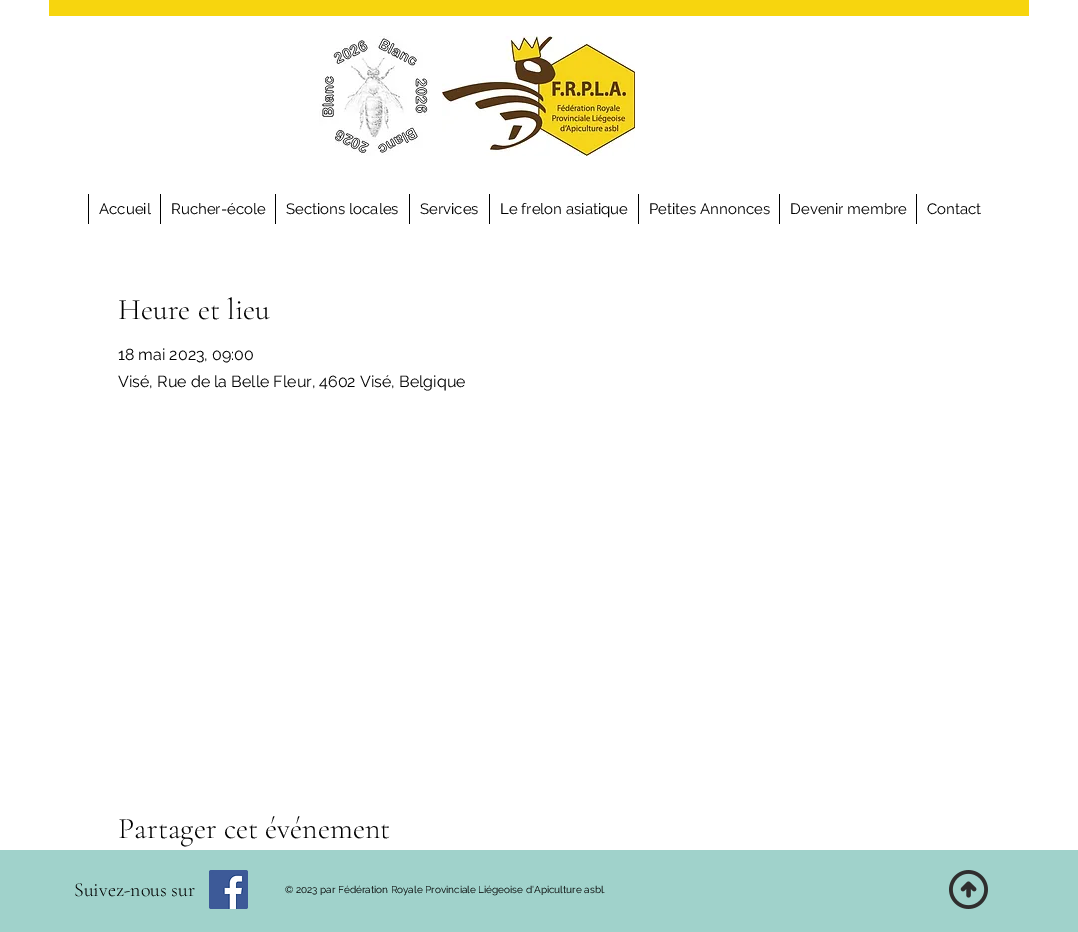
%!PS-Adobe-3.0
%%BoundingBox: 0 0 1078 932
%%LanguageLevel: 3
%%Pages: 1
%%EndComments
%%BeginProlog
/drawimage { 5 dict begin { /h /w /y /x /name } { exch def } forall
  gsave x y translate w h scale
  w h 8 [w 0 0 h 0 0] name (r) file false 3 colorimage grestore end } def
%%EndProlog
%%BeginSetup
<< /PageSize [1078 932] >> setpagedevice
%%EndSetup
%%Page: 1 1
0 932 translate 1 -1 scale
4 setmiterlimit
1 setgray
0 0 1078 932 rectfill
0.969 0.835 0.055 setrgbcolor
49 0 980 16 rectfill
(images/1.raw) 319 36 111 120 drawimage
(images/2.raw) 442 36 193 120 drawimage
0 setgray
88 194 1 30 rectfill
160 194 1 30 rectfill
275 194 1 30 rectfill
409 194 1 30 rectfill
489 194 1 30 rectfill
638 194 1 30 rectfill
779 194 1 30 rectfill
916 194 1 30 rectfill
0.627 0.824 0.796 setrgbcolor
0 850 1078 82 rectfill
(images/3.raw) 209 870 39 39 drawimage
(images/4.raw) 949 870 39 39 drawimage
/Raleway-Regular [15 0 0 -15 0 0] selectfont
0 setgray
99 214 moveto (Accueil) show
171 214 moveto (Rucher-école) show
286 214 moveto (Sections locales) show
420 214 moveto (Services) show
500 214 moveto (Le frelon asiatique) show
649 214 moveto (Petites Annonces) show
790 214 moveto (Devenir membre) show
927 214 moveto (Contact) show
/CormorantGaramond-Light [30 0 0 -30 0 0] selectfont
118 319 moveto (Heure et lieu) show
/Raleway-Regular [16 0 0 -16 0 0] selectfont
118 360 moveto (18 mai 2023, 09:00) show
118 387 moveto (Visé, Rue de la Belle Fleur, 4602 Visé, Belgique) show
/CormorantGaramond-Light [30 0 0 -30 0 0] selectfont
118 838 moveto (Partager cet événement) show
/CormorantGaramond-Light [20 0 0 -20 0 0] selectfont
74 896 moveto (Suivez-nous sur) show
/Raleway-Regular [10 0 0 -10 0 0] selectfont
285 893 moveto (© 2023 par Fédération Royale Provinciale Liégeoise d'Apiculture asbl.) show
showpage
%%EOF
